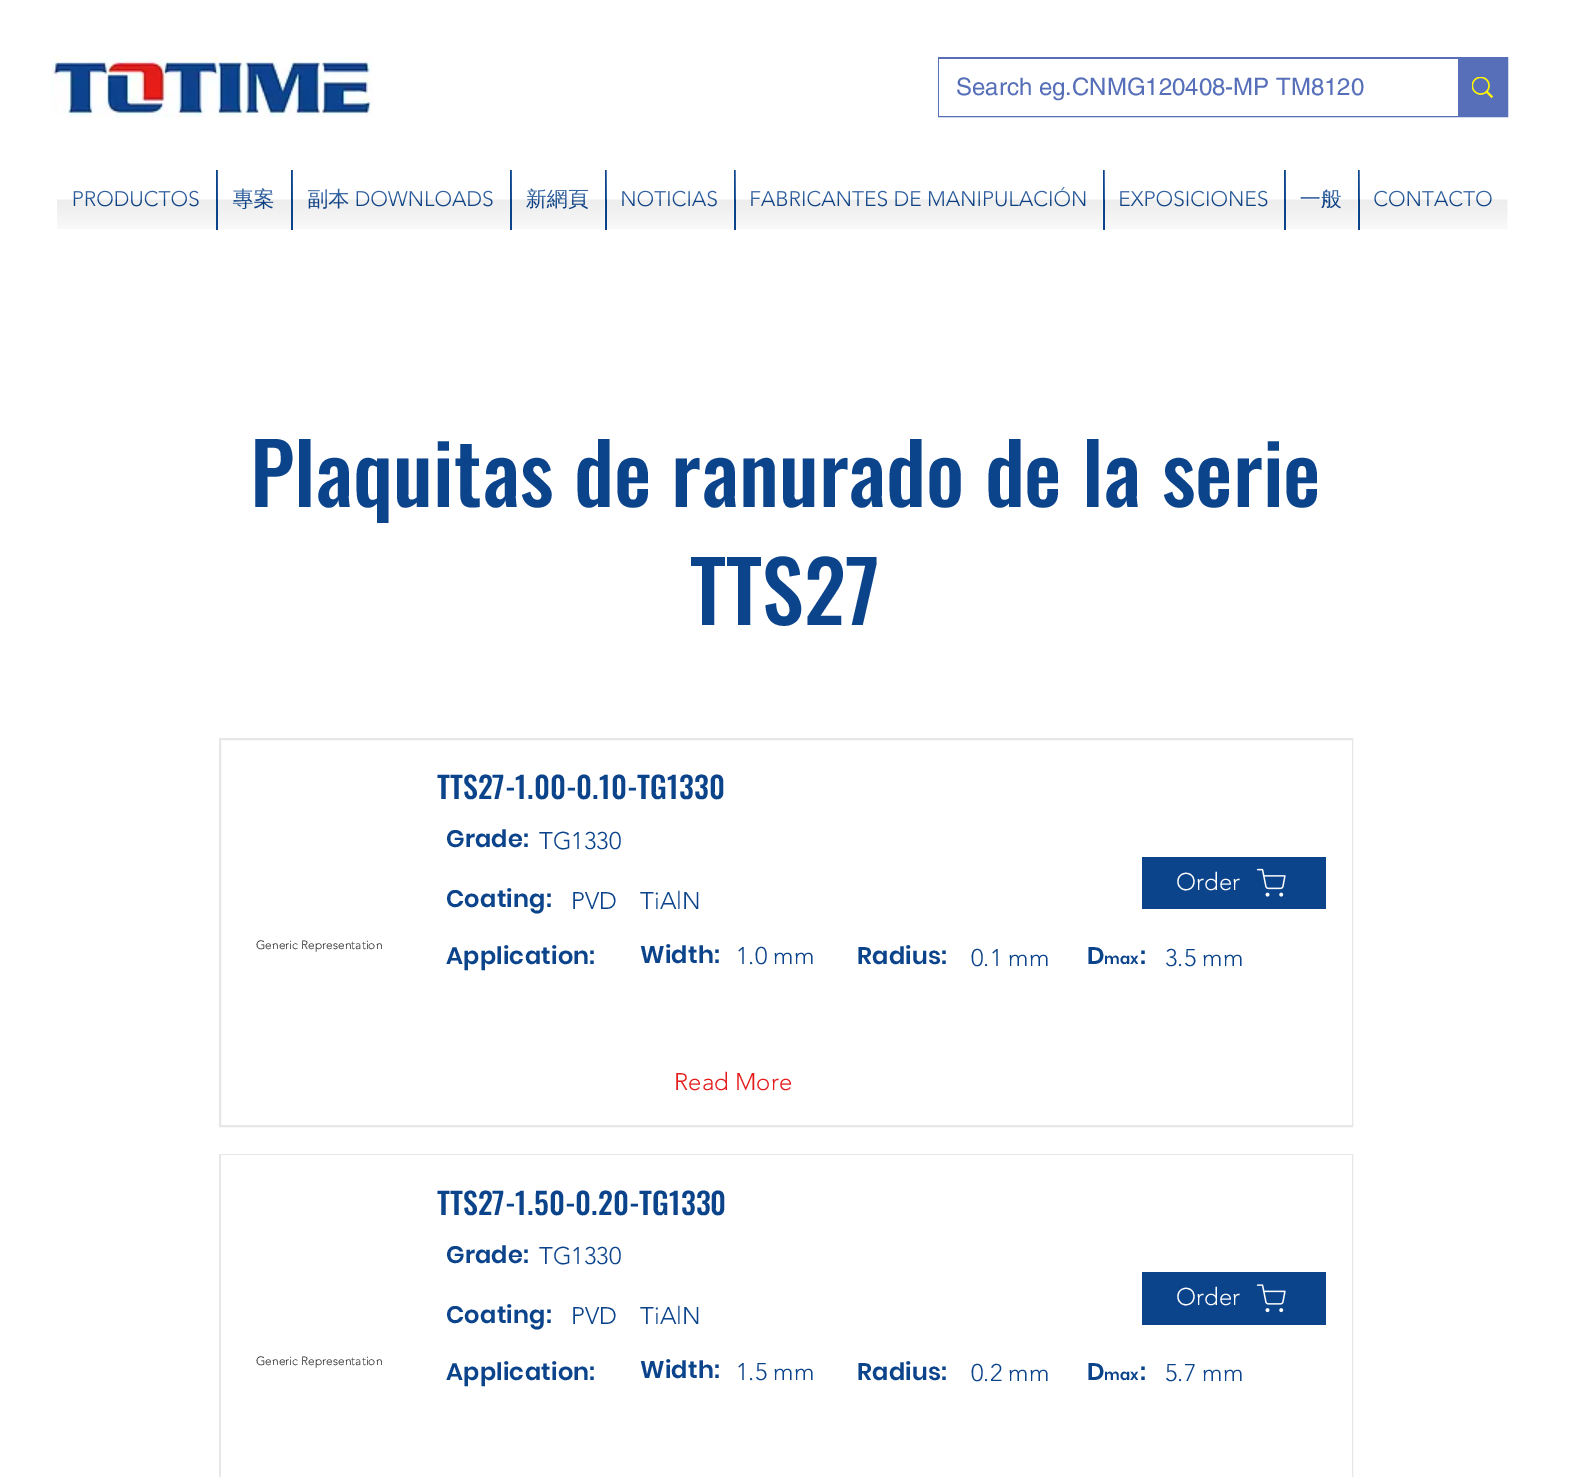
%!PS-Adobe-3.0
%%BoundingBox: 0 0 1570 1477
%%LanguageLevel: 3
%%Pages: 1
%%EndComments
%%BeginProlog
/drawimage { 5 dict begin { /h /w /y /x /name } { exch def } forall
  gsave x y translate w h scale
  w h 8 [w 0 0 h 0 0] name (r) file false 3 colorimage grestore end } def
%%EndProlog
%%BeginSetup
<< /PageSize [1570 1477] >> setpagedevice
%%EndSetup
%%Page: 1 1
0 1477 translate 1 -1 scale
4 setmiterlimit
1 setgray
0 0 1570 1477 rectfill
(images/1.raw) 51 57 322 60 drawimage
0.337 0.435 0.722 setrgbcolor
2 setlinewidth
939 58 568 58 rectstroke
1 setgray
939 59 519 57 rectfill
0.337 0.435 0.722 setrgbcolor
1458 59 48 56 rectfill
(images/2.raw) 1472 77 21 21 drawimage
0.047 0.267 0.549 setrgbcolor
216 170 2 60 rectfill
291 170 2 60 rectfill
510 170 2 60 rectfill
605 170 2 60 rectfill
734 170 2 60 rectfill
1103 170 2 60 rectfill
1284 170 2 60 rectfill
1358 170 2 60 rectfill
0.91 0.902 0.902 setrgbcolor
220 739 1132 387 rectstroke
0.047 0.267 0.549 setrgbcolor
1142 857 184 52 rectfill
(images/12.raw) 1256 868 30 29 drawimage
1 setgray
1351 740 1 385 rectfill
0.91 0.902 0.902 setrgbcolor
220 1155 1132 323 rectstroke
1 setgray
221 1155 1131 322 rectfill
0.047 0.267 0.549 setrgbcolor
1142 1272 184 53 rectfill
(images/13.raw) 1256 1284 30 29 drawimage
/helvetica-Regular [24 0 0 -24 0 0] selectfont
0.337 0.435 0.722 setrgbcolor
956 95 moveto (Search eg.CNMG120408-MP TM8120) show
/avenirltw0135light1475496-Light [21 0 0 -21 0 0] selectfont
0.047 0.267 0.549 setrgbcolor
72 206 moveto (PRODUCTOS) show
(images/3.raw) 57 190 159 39 drawimage
/WenQuanYiZenHei-Medium [21 0 0 -21 0 0] selectfont
233 206 moveto (專案) show
(images/4.raw) 217 170 74 59 drawimage
307 206 moveto (副本) show
/avenirltw0135light1475496-Light [21 0 0 -21 0 0] selectfont
355 206 moveto (DOWNLOADS) show
(images/5.raw) 292 170 218 59 drawimage
/WenQuanYiZenHei-Medium [21 0 0 -21 0 0] selectfont
526 206 moveto (新網頁) show
(images/6.raw) 511 170 94 59 drawimage
/avenirltw0135light1475496-Light [21 0 0 -21 0 0] selectfont
620 206 moveto (NOTICIAS) show
(images/7.raw) 606 170 128 59 drawimage
749 206 moveto (FABRICANTES DE MANIPULACIÓN) show
(images/8.raw) 735 170 368 59 drawimage
1118 206 moveto (EXPOSICIONES) show
(images/9.raw) 1104 170 180 59 drawimage
/WenQuanYiZenHei-Medium [21 0 0 -21 0 0] selectfont
1300 206 moveto (一般) show
(images/10.raw) 1285 170 73 59 drawimage
/avenirltw0135light1475496-Light [21 0 0 -21 0 0] selectfont
1373 206 moveto (CONTACTO) show
(images/11.raw) 1359 170 149 59 drawimage
/Oswald-Medium [84 0 0 -84 0 0] selectfont
250 507 moveto (Plaquitas de ranurado de la serie) show
690 625 moveto (TTS27) show
/Oswald-Medium [30 0 0 -30 0 0] selectfont
437 799 moveto (TTS27-1.00-0.10-TG1330) show
/Poppins-SemiBold [24 0 0 -24 0 0] selectfont
446 847 moveto 0.25 0 (Grade:) ashow
/avenirltw0135light1475496-Light [24 0 0 -24 0 0] selectfont
539 849 moveto (TG1330) show
1 setgray
1176 890 moveto (Order) show
/Poppins-SemiBold [24 0 0 -24 0 0] selectfont
0.047 0.267 0.549 setrgbcolor
446 907 moveto 0.25 0 (Coating:) ashow
/avenirltw0135light1475496-Light [24 0 0 -24 0 0] selectfont
571 909 moveto (PVD) show
640 909 moveto (TiAlN) show
/avenirltw0135light1475496-Light [12 0 0 -12 0 0] selectfont
0.161 setgray
256 949 moveto (Generic Representation) show
/Poppins-SemiBold [24 0 0 -24 0 0] selectfont
0.047 0.267 0.549 setrgbcolor
446 964 moveto 0.25 0 (Application:) ashow
640 963 moveto 0.25 0 (Width:) ashow
/avenirltw0135light1475496-Light [24 0 0 -24 0 0] selectfont
736 964 moveto (1.0 mm) show
/Poppins-SemiBold [24 0 0 -24 0 0] selectfont
857 964 moveto 0.25 0 (Radius:) ashow
/avenirltw0135light1475496-Light [24 0 0 -24 0 0] selectfont
971 966 moveto (0.1 mm) show
/Poppins-SemiBold [24 0 0 -24 0 0] selectfont
1087 964 moveto 0.25 0 (D) ashow
/Poppins-SemiBold [15 0 0 -15 0 0] selectfont
1104 964 moveto 0.25 0 (max) ashow
/Poppins-SemiBold [24 0 0 -24 0 0] selectfont
1140 964 moveto 0.25 0 (:) ashow
/avenirltw0135light1475496-Light [24 0 0 -24 0 0] selectfont
1165 966 moveto (3.5 mm) show
0.894 0.11 0.11 setrgbcolor
674 1090 moveto (Read More) show
/Oswald-Medium [30 0 0 -30 0 0] selectfont
0.047 0.267 0.549 setrgbcolor
437 1215 moveto (TTS27-1.50-0.20-TG1330) show
/Poppins-SemiBold [24 0 0 -24 0 0] selectfont
446 1263 moveto 0.25 0 (Grade:) ashow
/avenirltw0135light1475496-Light [24 0 0 -24 0 0] selectfont
539 1264 moveto (TG1330) show
1 setgray
1176 1305 moveto (Order) show
/Poppins-SemiBold [24 0 0 -24 0 0] selectfont
0.047 0.267 0.549 setrgbcolor
446 1323 moveto 0.25 0 (Coating:) ashow
/avenirltw0135light1475496-Light [24 0 0 -24 0 0] selectfont
571 1324 moveto (PVD) show
640 1324 moveto (TiAlN) show
/avenirltw0135light1475496-Light [12 0 0 -12 0 0] selectfont
0.161 setgray
256 1365 moveto (Generic Representation) show
/Poppins-SemiBold [24 0 0 -24 0 0] selectfont
0.047 0.267 0.549 setrgbcolor
446 1380 moveto 0.25 0 (Application:) ashow
640 1378 moveto 0.25 0 (Width:) ashow
/avenirltw0135light1475496-Light [24 0 0 -24 0 0] selectfont
736 1380 moveto (1.5 mm) show
/Poppins-SemiBold [24 0 0 -24 0 0] selectfont
857 1380 moveto 0.25 0 (Radius:) ashow
/avenirltw0135light1475496-Light [24 0 0 -24 0 0] selectfont
971 1381 moveto (0.2 mm) show
/Poppins-SemiBold [24 0 0 -24 0 0] selectfont
1087 1380 moveto 0.25 0 (D) ashow
/Poppins-SemiBold [15 0 0 -15 0 0] selectfont
1104 1380 moveto 0.25 0 (max) ashow
/Poppins-SemiBold [24 0 0 -24 0 0] selectfont
1140 1380 moveto 0.25 0 (:) ashow
/avenirltw0135light1475496-Light [24 0 0 -24 0 0] selectfont
1165 1381 moveto (5.7 mm) show
showpage
%%EOF
